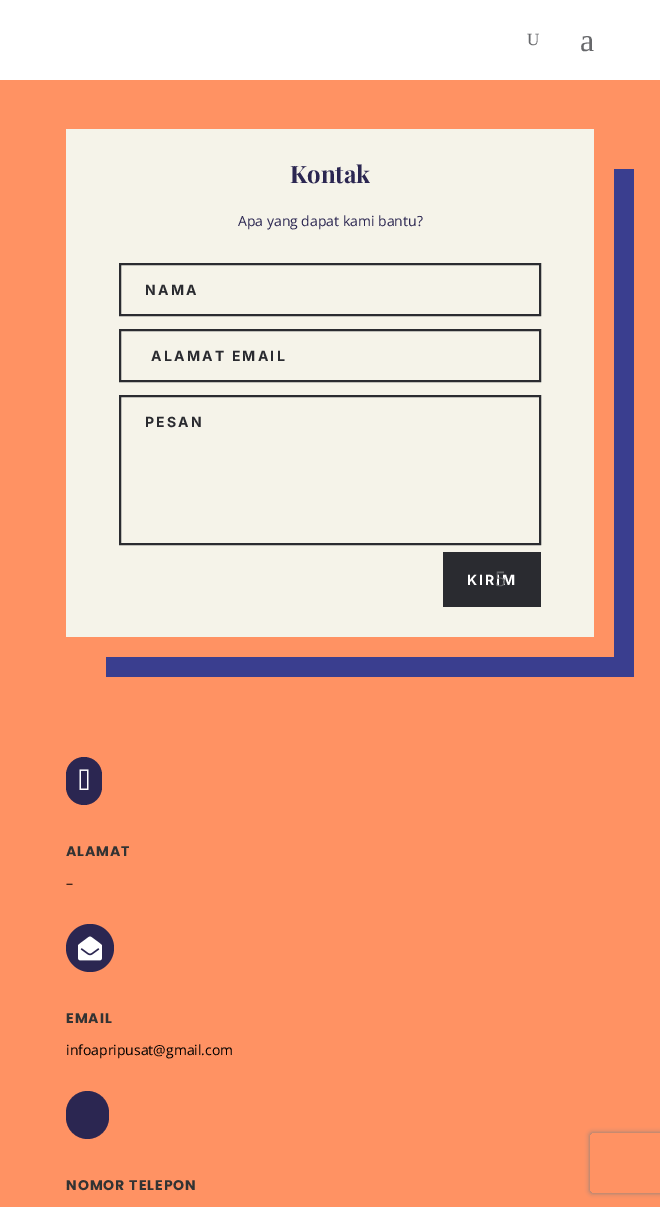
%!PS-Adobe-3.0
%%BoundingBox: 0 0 660 1207
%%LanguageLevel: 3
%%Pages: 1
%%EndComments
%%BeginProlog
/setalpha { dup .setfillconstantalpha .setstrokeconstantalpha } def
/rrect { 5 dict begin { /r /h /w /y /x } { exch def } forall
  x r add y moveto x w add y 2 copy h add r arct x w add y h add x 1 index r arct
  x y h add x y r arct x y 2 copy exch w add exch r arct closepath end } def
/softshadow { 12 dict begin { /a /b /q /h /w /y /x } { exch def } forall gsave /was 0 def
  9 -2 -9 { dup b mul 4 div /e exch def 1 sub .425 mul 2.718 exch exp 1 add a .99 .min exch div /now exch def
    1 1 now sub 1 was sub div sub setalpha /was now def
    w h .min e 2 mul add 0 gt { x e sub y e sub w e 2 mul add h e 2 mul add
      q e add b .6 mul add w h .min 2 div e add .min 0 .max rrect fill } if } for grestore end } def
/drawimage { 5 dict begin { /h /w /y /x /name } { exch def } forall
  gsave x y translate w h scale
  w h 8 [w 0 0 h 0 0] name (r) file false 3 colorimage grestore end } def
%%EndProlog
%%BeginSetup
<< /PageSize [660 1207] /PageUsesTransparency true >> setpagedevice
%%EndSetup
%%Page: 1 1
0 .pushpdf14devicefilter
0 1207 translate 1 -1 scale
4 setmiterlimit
1 0.573 0.388 setrgbcolor
0 0 660 1207 rectfill
1 setgray
0 0 660 80 rectfill
0.227 0.243 0.561 setrgbcolor
newpath 106 637 moveto 106 677 lineto 634 677 lineto 634 169 lineto 594 169 lineto 594 637 lineto closepath fill
0.961 0.953 0.914 setrgbcolor
66 129 528 508 rectfill
1 0.573 0.388 setrgbcolor
newpath 86 637 moveto 86 657 lineto 614 657 lineto 614 149 lineto 594 149 lineto 594 637 lineto closepath fill
0.165 0.169 0.188 setrgbcolor
2 setlinewidth
120 264 420 51 rectstroke
120 330 420 51 rectstroke
120 396 420 148 rectstroke
443 552 98 55 rectfill
0.169 0.149 0.318 setrgbcolor
66 757 36 48 18 rrect fill
(images/1.raw) 79 769 10 21 drawimage
newpath 90 948 24 0 360 arc closepath fill
(images/2.raw) 78 936 24 25 drawimage
66 1091 43 48 21.5 rrect fill
gsave
newpath 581 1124 moveto 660 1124 lineto 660 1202 lineto 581 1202 lineto closepath 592 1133 moveto 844 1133 lineto 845 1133 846 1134 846 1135 curveto 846 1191 lineto 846 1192 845 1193 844 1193 curveto 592 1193 lineto 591 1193 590 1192 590 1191 curveto 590 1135 lineto 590 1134 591 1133 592 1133 curveto closepath eoclip newpath
0.502 setgray
590 1133 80 60 2 2.5 1 softshadow
grestore
/LiberationSerif-Regular [17 0 0 -17 0 0] selectfont
0.404 0.408 0.42 setrgbcolor
527 45 moveto (U) show
/LiberationSerif-Regular [32 0 0 -32 0 0] selectfont
580 51 moveto (a) show
/PlayfairDisplay-Bold [24 0 0 -24 0 0] selectfont
0.169 0.149 0.318 setrgbcolor
290 183 moveto (Kontak) show
/OpenSans-Regular [14 0 0 -14 0 0] selectfont
238 226 moveto (Apa yang dapat kami bantu?) show
/Inter-Bold [14 0 0 -14 0 0] selectfont
0.165 0.169 0.188 setrgbcolor
145 295 moveto 2.25 0 (NAMA) ashow
151 361 moveto 2.25 0 (ALAMAT EMAIL) ashow
145 427 moveto 2.25 0 (PESAN) ashow
1 setgray
467 585 moveto 2 0 (KIRIM) ashow
/LiberationSerif-Regular [22 0 0 -22 0 0] selectfont
0.404 0.408 0.42 setrgbcolor
495 586 moveto 2 0 (5) ashow
/Poppins-Bold [14 0 0 -14 0 0] selectfont
0.2 setgray
66 856 moveto 1 0 (ALAMAT) ashow
/OpenSans-Regular [14 0 0 -14 0 0] selectfont
0 setgray
66 888 moveto (–) show
/Poppins-Bold [14 0 0 -14 0 0] selectfont
0.2 setgray
66 1023 moveto 1 0 (EMAIL) ashow
/OpenSans-Regular [14 0 0 -14 0 0] selectfont
0 setgray
66 1055 moveto (infoapripusat@gmail.com) show
/Poppins-Bold [14 0 0 -14 0 0] selectfont
0.2 setgray
66 1190 moveto 1 0 (NOMOR TELEPON) ashow
.poppdf14devicefilter showpage
%%EOF
